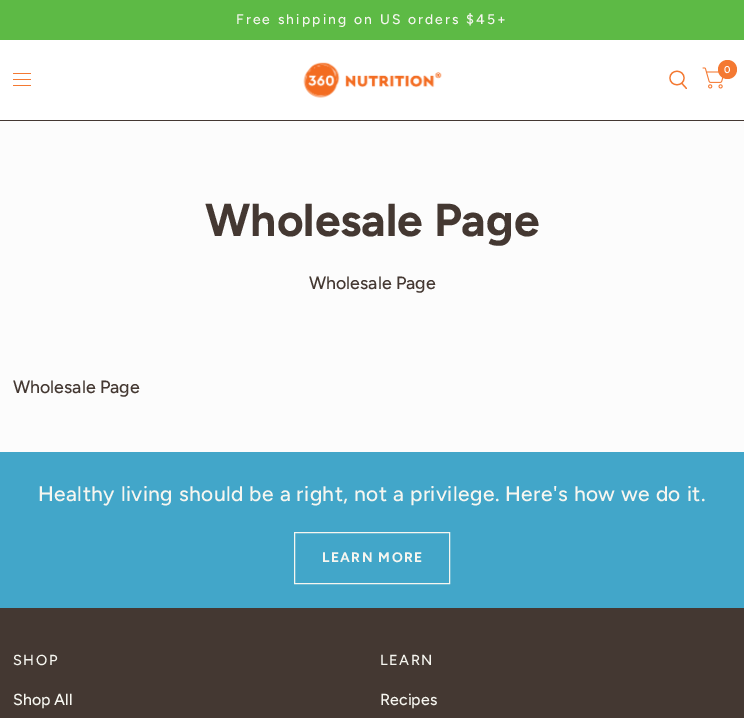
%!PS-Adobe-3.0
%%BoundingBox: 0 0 744 718
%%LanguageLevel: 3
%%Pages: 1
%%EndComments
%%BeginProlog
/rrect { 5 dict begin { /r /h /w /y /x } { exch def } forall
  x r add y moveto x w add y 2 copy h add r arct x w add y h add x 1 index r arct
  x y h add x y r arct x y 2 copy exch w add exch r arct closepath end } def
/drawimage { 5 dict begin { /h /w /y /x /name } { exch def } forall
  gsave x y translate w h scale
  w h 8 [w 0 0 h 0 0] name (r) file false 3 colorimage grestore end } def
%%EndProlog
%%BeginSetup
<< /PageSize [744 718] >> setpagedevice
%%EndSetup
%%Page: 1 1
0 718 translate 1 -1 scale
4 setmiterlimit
0.988 setgray
0 0 744 718 rectfill
0.365 0.729 0.271 setrgbcolor
0 0 744 40 rectfill
1 setgray
0 40 744 80 rectfill
0.267 0.22 0.196 setrgbcolor
0 120 744 1 rectfill
(images/1.raw) 303 62 139 36 drawimage
0.957 0.475 0.196 setrgbcolor
1.2 setlinewidth
1 setlinecap
1 setlinejoin
newpath 682 83.5 moveto 686.5 88.5 lineto 684 78 moveto 684 87 670 87 670 78 curveto 670 69 684 69 684 78 curveto closepath stroke
(images/2.raw) 702 67 22 22 drawimage
newpath 727.5 69.5 9.5 0 360 arc closepath fill
13 73 18 1 0.5 rrect fill
13 79 18 1 0.5 rrect fill
13 85 18 1 0.5 rrect fill
0.259 0.651 0.788 setrgbcolor
0 452 744 156 rectfill
0.965 0.965 0.941 setrgbcolor
1 setlinewidth
0 setlinecap
0 setlinejoin
294.5 532.5 155 51 rectstroke
0.267 0.22 0.196 setrgbcolor
0 608 744 110 rectfill
/Figtree-Medium [14 0 0 -14 0 0] selectfont
0.965 0.965 0.941 setrgbcolor
236 24 moveto 2.1 0 (Free shipping on US orders $45+) ashow
/Figtree-SemiBold [10 0 0 -10 0 0] selectfont
1 setgray
724 73 moveto (0) show
/Figtree-Bold [46 0 0 -46 0 0] selectfont
0.267 0.22 0.196 setrgbcolor
205 236 moveto (Wholesale Page) show
/Figtree-Medium [17.75 0 0 -17.75 0 0] selectfont
309 289 moveto (Wholesale Page) show
13 393 moveto (Wholesale Page) show
/Figtree-Medium [21 0 0 -21 0 0] selectfont
0.965 0.965 0.941 setrgbcolor
38 501 moveto 0.42 0 (Healthy living should be a right, not a privilege. Here's how we do it.) ashow
/Figtree-Bold [13.75 0 0 -13.75 0 0] selectfont
322 562 moveto 1.4 0 (LEARN MORE) ashow
/Figtree-Medium [14.5 0 0 -14.5 0 0] selectfont
13 665 moveto 1.5 0 (SHOP) ashow
/Figtree-Medium [16 0 0 -16 0 0] selectfont
13 705 moveto (Shop All) show
/Figtree-Medium [14.5 0 0 -14.5 0 0] selectfont
380 665 moveto 1.5 0 (LEARN) ashow
/Figtree-Medium [16 0 0 -16 0 0] selectfont
380 705 moveto (Recipes) show
showpage
%%EOF
